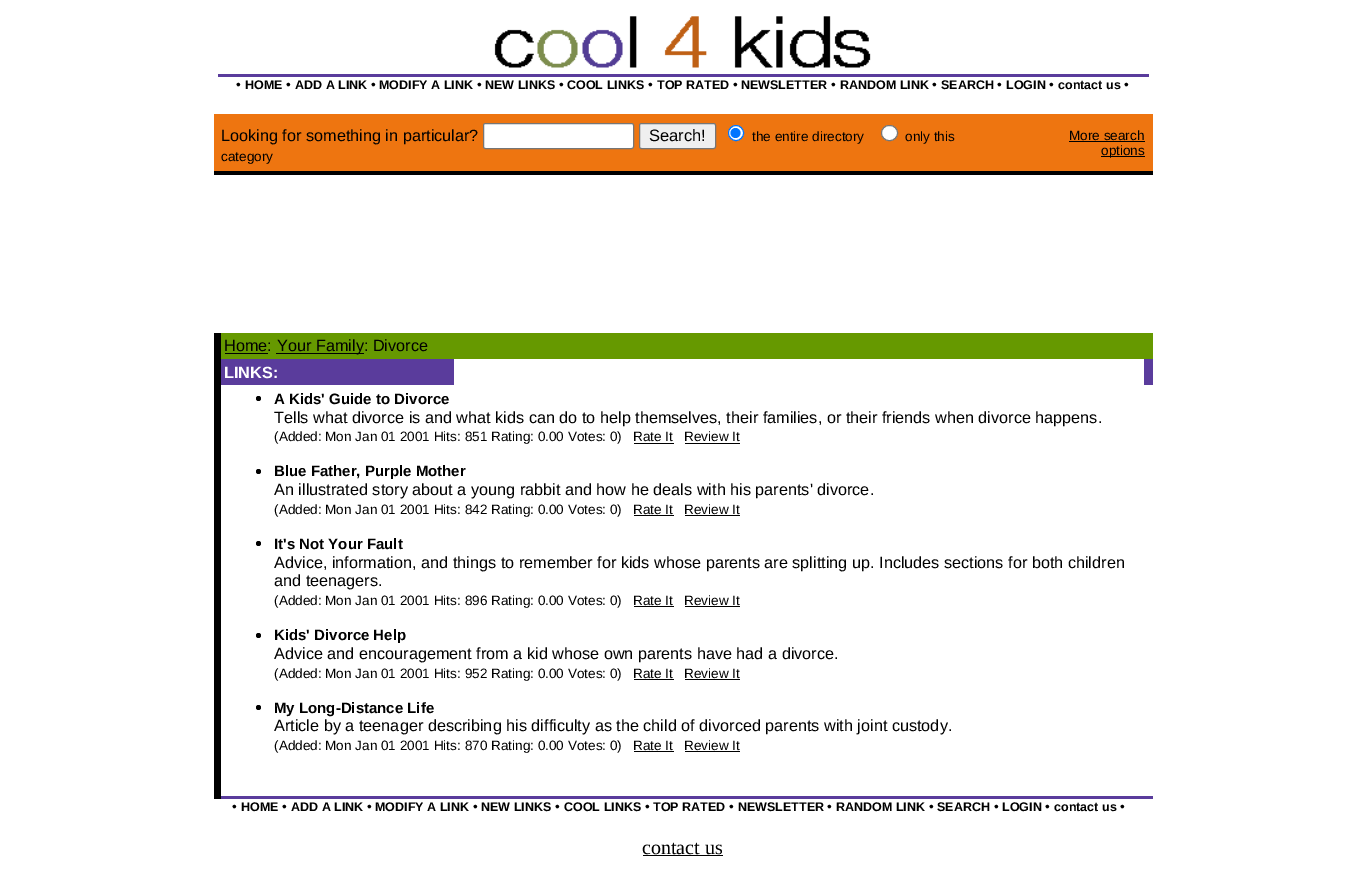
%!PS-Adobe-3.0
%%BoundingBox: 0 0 1364 872
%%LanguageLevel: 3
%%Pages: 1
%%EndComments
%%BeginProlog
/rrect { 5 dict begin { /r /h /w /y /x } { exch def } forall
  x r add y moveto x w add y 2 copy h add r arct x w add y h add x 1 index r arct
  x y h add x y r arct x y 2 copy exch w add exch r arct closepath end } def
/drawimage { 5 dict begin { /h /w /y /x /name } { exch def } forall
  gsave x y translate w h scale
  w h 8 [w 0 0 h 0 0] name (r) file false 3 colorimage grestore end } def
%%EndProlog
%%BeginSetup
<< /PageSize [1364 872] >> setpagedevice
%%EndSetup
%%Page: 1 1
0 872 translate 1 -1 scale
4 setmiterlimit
1 setgray
0 0 1364 872 rectfill
(images/1.raw) 494 16 377 52 drawimage
0.353 0.235 0.612 setrgbcolor
218 74 931 3 rectfill
0.933 0.459 0.063 setrgbcolor
214 114 939 57 rectfill
1 setgray
483.5 123.5 150 25 2 rrect gsave fill grestore
0.463 setgray
stroke
0.937 setgray
639.5 123.5 76 25 2 rrect gsave fill grestore
0.463 setgray
stroke
1 setgray
newpath 736 133 7.5 0 360 arc closepath gsave fill grestore
0 0.459 1 setrgbcolor
stroke
newpath 735.5 133 5 0 360 arc closepath fill
1 setgray
881.5 125.5 16 15 7.5 rrect gsave fill grestore
0.463 setgray
stroke
0 setgray
1069 141 76 1 rectfill
1101 156 44 1 rectfill
214 171 939 4 rectfill
214 333 7 466 rectfill
0.4 0.6 0 setrgbcolor
221 333 932 26 rectfill
0 setgray
225 353 43 1 rectfill
276 353 88 1 rectfill
0.353 0.235 0.612 setrgbcolor
221 359 932 26 rectfill
1 setgray
454 359 690 26 rectfill
0 setgray
newpath 258.5 398.5 2.5 0 360 arc closepath fill
634 443 40 1 rectfill
685 443 55 1 rectfill
newpath 258.5 471.5 2.5 0 360 arc closepath fill
634 515 40 1 rectfill
685 515 55 1 rectfill
newpath 258.5 543.5 2.5 0 360 arc closepath fill
634 606 40 1 rectfill
685 606 55 1 rectfill
newpath 258.5 635.5 2.5 0 360 arc closepath fill
634 679 40 1 rectfill
685 679 55 1 rectfill
newpath 258.5 707.5 2.5 0 360 arc closepath fill
634 751 40 1 rectfill
685 751 55 1 rectfill
0.353 0.235 0.612 setrgbcolor
221 796 932 3 rectfill
0 setgray
643 855 80 1 rectfill
/LiberationSans-Regular [13.55 0 0 -13.55 0 0] selectfont
236 89 moveto (•) show
/LiberationSans-Bold [12.5 0 0 -12.5 0 0] selectfont
245 89 moveto (HOME) show
/LiberationSans-Regular [13.55 0 0 -13.55 0 0] selectfont
286 89 moveto (•) show
/LiberationSans-Bold [12.5 0 0 -12.5 0 0] selectfont
295 89 moveto (ADD A LINK) show
/LiberationSans-Regular [13.55 0 0 -13.55 0 0] selectfont
371 89 moveto (•) show
/LiberationSans-Bold [12.5 0 0 -12.5 0 0] selectfont
379 89 moveto (MODIFY A LINK) show
/LiberationSans-Regular [13.55 0 0 -13.55 0 0] selectfont
477 89 moveto (•) show
/LiberationSans-Bold [12.5 0 0 -12.5 0 0] selectfont
485 89 moveto (NEW LINKS) show
/LiberationSans-Regular [13.55 0 0 -13.55 0 0] selectfont
559 89 moveto (•) show
/LiberationSans-Bold [12.5 0 0 -12.5 0 0] selectfont
567 89 moveto (COOL LINKS) show
/LiberationSans-Regular [13.55 0 0 -13.55 0 0] selectfont
648 89 moveto (•) show
/LiberationSans-Bold [12.5 0 0 -12.5 0 0] selectfont
657 89 moveto (TOP RATED) show
/LiberationSans-Regular [13.55 0 0 -13.55 0 0] selectfont
733 89 moveto (•) show
/LiberationSans-Bold [12.5 0 0 -12.5 0 0] selectfont
741 89 moveto (NEWSLETTER) show
/LiberationSans-Regular [13.55 0 0 -13.55 0 0] selectfont
831 89 moveto (•) show
/LiberationSans-Bold [12.5 0 0 -12.5 0 0] selectfont
840 89 moveto (RANDOM LINK) show
/LiberationSans-Regular [13.55 0 0 -13.55 0 0] selectfont
932 89 moveto (•) show
/LiberationSans-Bold [12.5 0 0 -12.5 0 0] selectfont
941 89 moveto (SEARCH) show
/LiberationSans-Regular [13.55 0 0 -13.55 0 0] selectfont
997 89 moveto (•) show
/LiberationSans-Bold [12.5 0 0 -12.5 0 0] selectfont
1006 89 moveto (LOGIN) show
/LiberationSans-Regular [13.55 0 0 -13.55 0 0] selectfont
1049 89 moveto (•) show
/LiberationSans-Bold [12.5 0 0 -12.5 0 0] selectfont
1058 89 moveto (contact us) show
/LiberationSans-Regular [13.55 0 0 -13.55 0 0] selectfont
1124 89 moveto (•) show
/LiberationSans-Regular [16.25 0 0 -16.25 0 0] selectfont
221 141 moveto (Looking for something in particular?) show
/LiberationSans-Regular [16.5 0 0 -16.5 0 0] selectfont
649 141 moveto (Search!) show
/LiberationSans-Regular [13.55 0 0 -13.55 0 0] selectfont
752 141 moveto (the entire directory) show
905 141 moveto (only this) show
221 161 moveto (category) show
1069 140 moveto (More search) show
1101 155 moveto (options) show
/LiberationSans-Regular [16.25 0 0 -16.25 0 0] selectfont
224 351 moveto (Home:) show
277 351 moveto (Your Family: Divorce) show
/LiberationSans-Bold [16.25 0 0 -16.25 0 0] selectfont
1 setgray
224 378 moveto (LINKS:) show
/LiberationSans-Bold [15 0 0 -15 0 0] selectfont
0 setgray
274 404 moveto (A Kids' Guide to Divorce) show
/LiberationSans-Regular [16.25 0 0 -16.25 0 0] selectfont
274 423 moveto (Tells what divorce is and what kids can do to help themselves, their families, or their friends when divorce happens.) show
/LiberationSans-Regular [13.55 0 0 -13.55 0 0] selectfont
274 441 moveto (\(Added: Mon Jan 01 2001 Hits: 851 Rating: 0.00 Votes: 0\)) show
633 441 moveto (Rate It) show
684 441 moveto (Review It) show
/LiberationSans-Bold [15 0 0 -15 0 0] selectfont
274 476 moveto (Blue Father, Purple Mother) show
/LiberationSans-Regular [16.25 0 0 -16.25 0 0] selectfont
274 495 moveto (An illustrated story about a young rabbit and how he deals with his parents' divorce.) show
/LiberationSans-Regular [13.55 0 0 -13.55 0 0] selectfont
274 514 moveto (\(Added: Mon Jan 01 2001 Hits: 842 Rating: 0.00 Votes: 0\)) show
633 514 moveto (Rate It) show
684 514 moveto (Review It) show
/LiberationSans-Bold [15 0 0 -15 0 0] selectfont
274 549 moveto (It's Not Your Fault) show
/LiberationSans-Regular [16.25 0 0 -16.25 0 0] selectfont
274 568 moveto (Advice, information, and things to remember for kids whose parents are splitting up. Includes sections for both children) show
274 586 moveto (and teenagers.) show
/LiberationSans-Regular [13.55 0 0 -13.55 0 0] selectfont
274 605 moveto (\(Added: Mon Jan 01 2001 Hits: 896 Rating: 0.00 Votes: 0\)) show
633 605 moveto (Rate It) show
684 605 moveto (Review It) show
/LiberationSans-Bold [15 0 0 -15 0 0] selectfont
274 640 moveto (Kids' Divorce Help) show
/LiberationSans-Regular [16.25 0 0 -16.25 0 0] selectfont
274 659 moveto (Advice and encouragement from a kid whose own parents have had a divorce.) show
/LiberationSans-Regular [13.55 0 0 -13.55 0 0] selectfont
274 678 moveto (\(Added: Mon Jan 01 2001 Hits: 952 Rating: 0.00 Votes: 0\)) show
633 678 moveto (Rate It) show
684 678 moveto (Review It) show
/LiberationSans-Bold [15 0 0 -15 0 0] selectfont
274 713 moveto (My Long-Distance Life) show
/LiberationSans-Regular [16.25 0 0 -16.25 0 0] selectfont
274 731 moveto (Article by a teenager describing his difficulty as the child of divorced parents with joint custody.) show
/LiberationSans-Regular [13.55 0 0 -13.55 0 0] selectfont
274 750 moveto (\(Added: Mon Jan 01 2001 Hits: 870 Rating: 0.00 Votes: 0\)) show
633 750 moveto (Rate It) show
684 750 moveto (Review It) show
232 811 moveto (•) show
/LiberationSans-Bold [12.5 0 0 -12.5 0 0] selectfont
241 811 moveto (HOME) show
/LiberationSans-Regular [13.55 0 0 -13.55 0 0] selectfont
282 811 moveto (•) show
/LiberationSans-Bold [12.5 0 0 -12.5 0 0] selectfont
291 811 moveto (ADD A LINK) show
/LiberationSans-Regular [13.55 0 0 -13.55 0 0] selectfont
367 811 moveto (•) show
/LiberationSans-Bold [12.5 0 0 -12.5 0 0] selectfont
375 811 moveto (MODIFY A LINK) show
/LiberationSans-Regular [13.55 0 0 -13.55 0 0] selectfont
473 811 moveto (•) show
/LiberationSans-Bold [12.5 0 0 -12.5 0 0] selectfont
481 811 moveto (NEW LINKS) show
/LiberationSans-Regular [13.55 0 0 -13.55 0 0] selectfont
555 811 moveto (•) show
/LiberationSans-Bold [12.5 0 0 -12.5 0 0] selectfont
564 811 moveto (COOL LINKS) show
/LiberationSans-Regular [13.55 0 0 -13.55 0 0] selectfont
645 811 moveto (•) show
/LiberationSans-Bold [12.5 0 0 -12.5 0 0] selectfont
653 811 moveto (TOP RATED) show
/LiberationSans-Regular [13.55 0 0 -13.55 0 0] selectfont
729 811 moveto (•) show
/LiberationSans-Bold [12.5 0 0 -12.5 0 0] selectfont
738 811 moveto (NEWSLETTER) show
/LiberationSans-Regular [13.55 0 0 -13.55 0 0] selectfont
827 811 moveto (•) show
/LiberationSans-Bold [12.5 0 0 -12.5 0 0] selectfont
836 811 moveto (RANDOM LINK) show
/LiberationSans-Regular [13.55 0 0 -13.55 0 0] selectfont
929 811 moveto (•) show
/LiberationSans-Bold [12.5 0 0 -12.5 0 0] selectfont
937 811 moveto (SEARCH) show
/LiberationSans-Regular [13.55 0 0 -13.55 0 0] selectfont
994 811 moveto (•) show
/LiberationSans-Bold [12.5 0 0 -12.5 0 0] selectfont
1002 811 moveto (LOGIN) show
/LiberationSans-Regular [13.55 0 0 -13.55 0 0] selectfont
1045 811 moveto (•) show
/LiberationSans-Bold [12.5 0 0 -12.5 0 0] selectfont
1054 811 moveto (contact us) show
/LiberationSans-Regular [13.55 0 0 -13.55 0 0] selectfont
1120 811 moveto (•) show
/LiberationSerif-Regular [20 0 0 -20 0 0] selectfont
642 854 moveto (contact us) show
showpage
%%EOF
